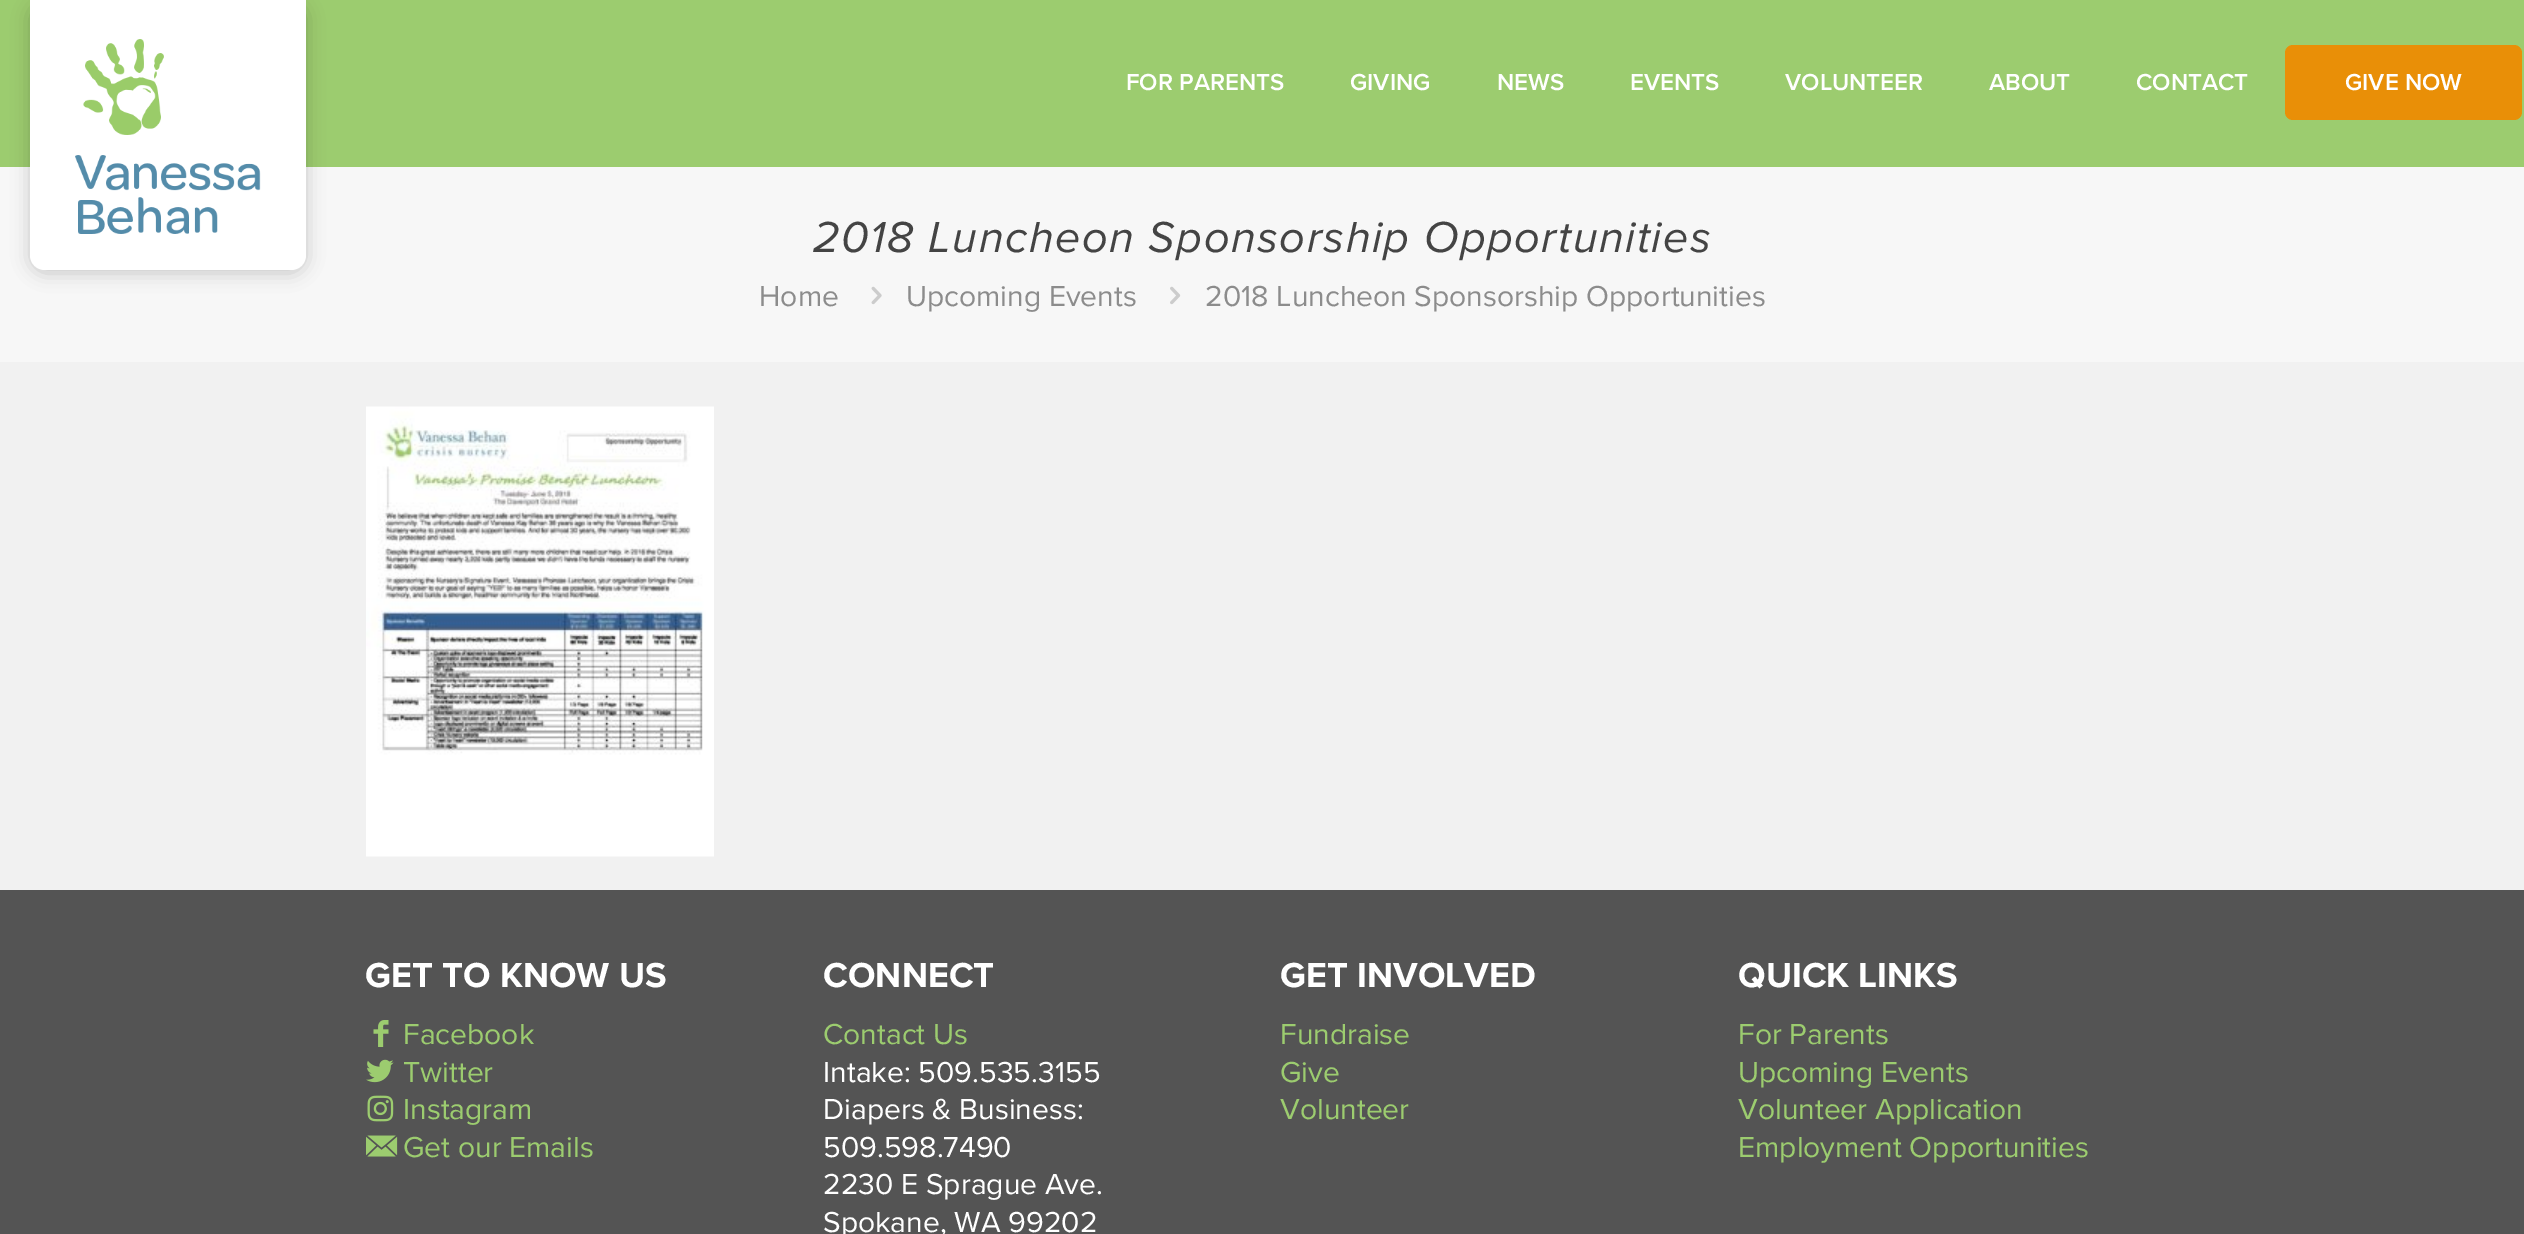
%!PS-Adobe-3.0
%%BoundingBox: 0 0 2524 1234
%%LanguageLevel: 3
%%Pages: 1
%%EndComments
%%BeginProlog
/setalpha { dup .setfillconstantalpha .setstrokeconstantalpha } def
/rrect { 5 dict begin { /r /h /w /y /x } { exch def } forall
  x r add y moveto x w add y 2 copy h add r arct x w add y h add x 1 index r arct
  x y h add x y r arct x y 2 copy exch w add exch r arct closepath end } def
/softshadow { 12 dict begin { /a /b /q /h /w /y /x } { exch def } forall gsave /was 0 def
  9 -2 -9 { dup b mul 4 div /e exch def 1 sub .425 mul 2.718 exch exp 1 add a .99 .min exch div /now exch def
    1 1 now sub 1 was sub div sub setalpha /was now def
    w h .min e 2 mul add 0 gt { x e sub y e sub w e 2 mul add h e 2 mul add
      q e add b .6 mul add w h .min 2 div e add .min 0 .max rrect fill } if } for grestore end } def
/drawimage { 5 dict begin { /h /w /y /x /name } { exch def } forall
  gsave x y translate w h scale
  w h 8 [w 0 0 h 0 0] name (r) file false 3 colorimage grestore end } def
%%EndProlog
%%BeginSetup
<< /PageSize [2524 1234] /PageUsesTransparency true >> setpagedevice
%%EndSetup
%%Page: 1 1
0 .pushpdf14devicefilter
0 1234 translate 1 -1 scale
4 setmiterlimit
0.945 setgray
0 0 2524 1234 rectfill
0.612 0.8 0.435 setrgbcolor
0 0 2524 167 rectfill
0.969 setgray
0 167 2524 195 rectfill
0 setgray
30 3 276 270 15 9 0.2 softshadow
1 setgray
newpath 30 0 moveto 306 0 lineto 306 255 lineto 306 263.5 299.5 270 291 270 curveto 45 270 lineto 36.5 270 30 263.5 30 255 curveto closepath fill
(images/1.raw) 75 39 186 195 drawimage
0.914 0.561 0.027 setrgbcolor
2285 45 237 75 8 rrect fill
(images/2.raw) 871 286 11 19 drawimage
(images/3.raw) 1170 286 11 19 drawimage
(images/4.raw) 366 406 348 451 drawimage
0.329 setgray
0 890 2524 344 rectfill
(images/5.raw) 373 1020 16 27 drawimage
(images/6.raw) 366 1059 28 24 drawimage
(images/7.raw) 367 1095 27 27 drawimage
(images/8.raw) 366 1135 32 22 drawimage
/ProximaNova-SemiBold [24 0 0 -24 0 0] selectfont
1 setgray
1126 90 moveto (FOR PARENTS) show
1350 90 moveto (GIVING) show
1497 90 moveto (NEWS) show
1630 90 moveto (EVENTS) show
1785 90 moveto (VOLUNTEER) show
1989 90 moveto (ABOUT) show
2136 90 moveto (CONTACT) show
2345 90 moveto (GIVE NOW) show
/ProximaNova-Italic [45 0 0 -45 0 0] selectfont
0.267 setgray
813 252 moveto 1.5 0 (2018 Luncheon Sponsorship Opportunities) ashow
/ProximaNova-Regular [30 0 0 -30 0 0] selectfont
0.549 setgray
759 306 moveto (Home) show
906 306 moveto (Upcoming Events) show
1205 306 moveto (2018 Luncheon Sponsorship Opportunities) show
/ProximaNova-Bold [36 0 0 -36 0 0] selectfont
1 setgray
365 987 moveto (GET TO KNOW US) show
/ProximaNova-Regular [30 0 0 -30 0 0] selectfont
0.612 0.8 0.435 setrgbcolor
403 1044 moveto (Facebook) show
403 1082 moveto (Twitter) show
403 1119 moveto (Instagram) show
403 1157 moveto (Get our Emails) show
/ProximaNova-Bold [36 0 0 -36 0 0] selectfont
1 setgray
823 987 moveto (CONNECT) show
/ProximaNova-Regular [30 0 0 -30 0 0] selectfont
0.612 0.8 0.435 setrgbcolor
823 1044 moveto (Contact Us) show
1 setgray
823 1082 moveto (Intake: 509.535.3155) show
823 1119 moveto (Diapers & Business:) show
823 1157 moveto (509.598.7490) show
823 1194 moveto (2230 E Sprague Ave.) show
823 1232 moveto (Spokane, WA 99202) show
/ProximaNova-Bold [36 0 0 -36 0 0] selectfont
1280 987 moveto (GET INVOLVED) show
/ProximaNova-Regular [30 0 0 -30 0 0] selectfont
0.612 0.8 0.435 setrgbcolor
1280 1044 moveto (Fundraise) show
1280 1082 moveto (Give) show
1280 1119 moveto (Volunteer) show
/ProximaNova-Bold [36 0 0 -36 0 0] selectfont
1 setgray
1738 987 moveto (QUICK LINKS) show
/ProximaNova-Regular [30 0 0 -30 0 0] selectfont
0.612 0.8 0.435 setrgbcolor
1738 1044 moveto (For Parents) show
1738 1082 moveto (Upcoming Events) show
1738 1119 moveto (Volunteer Application) show
1738 1157 moveto (Employment Opportunities) show
.poppdf14devicefilter showpage
%%EOF
